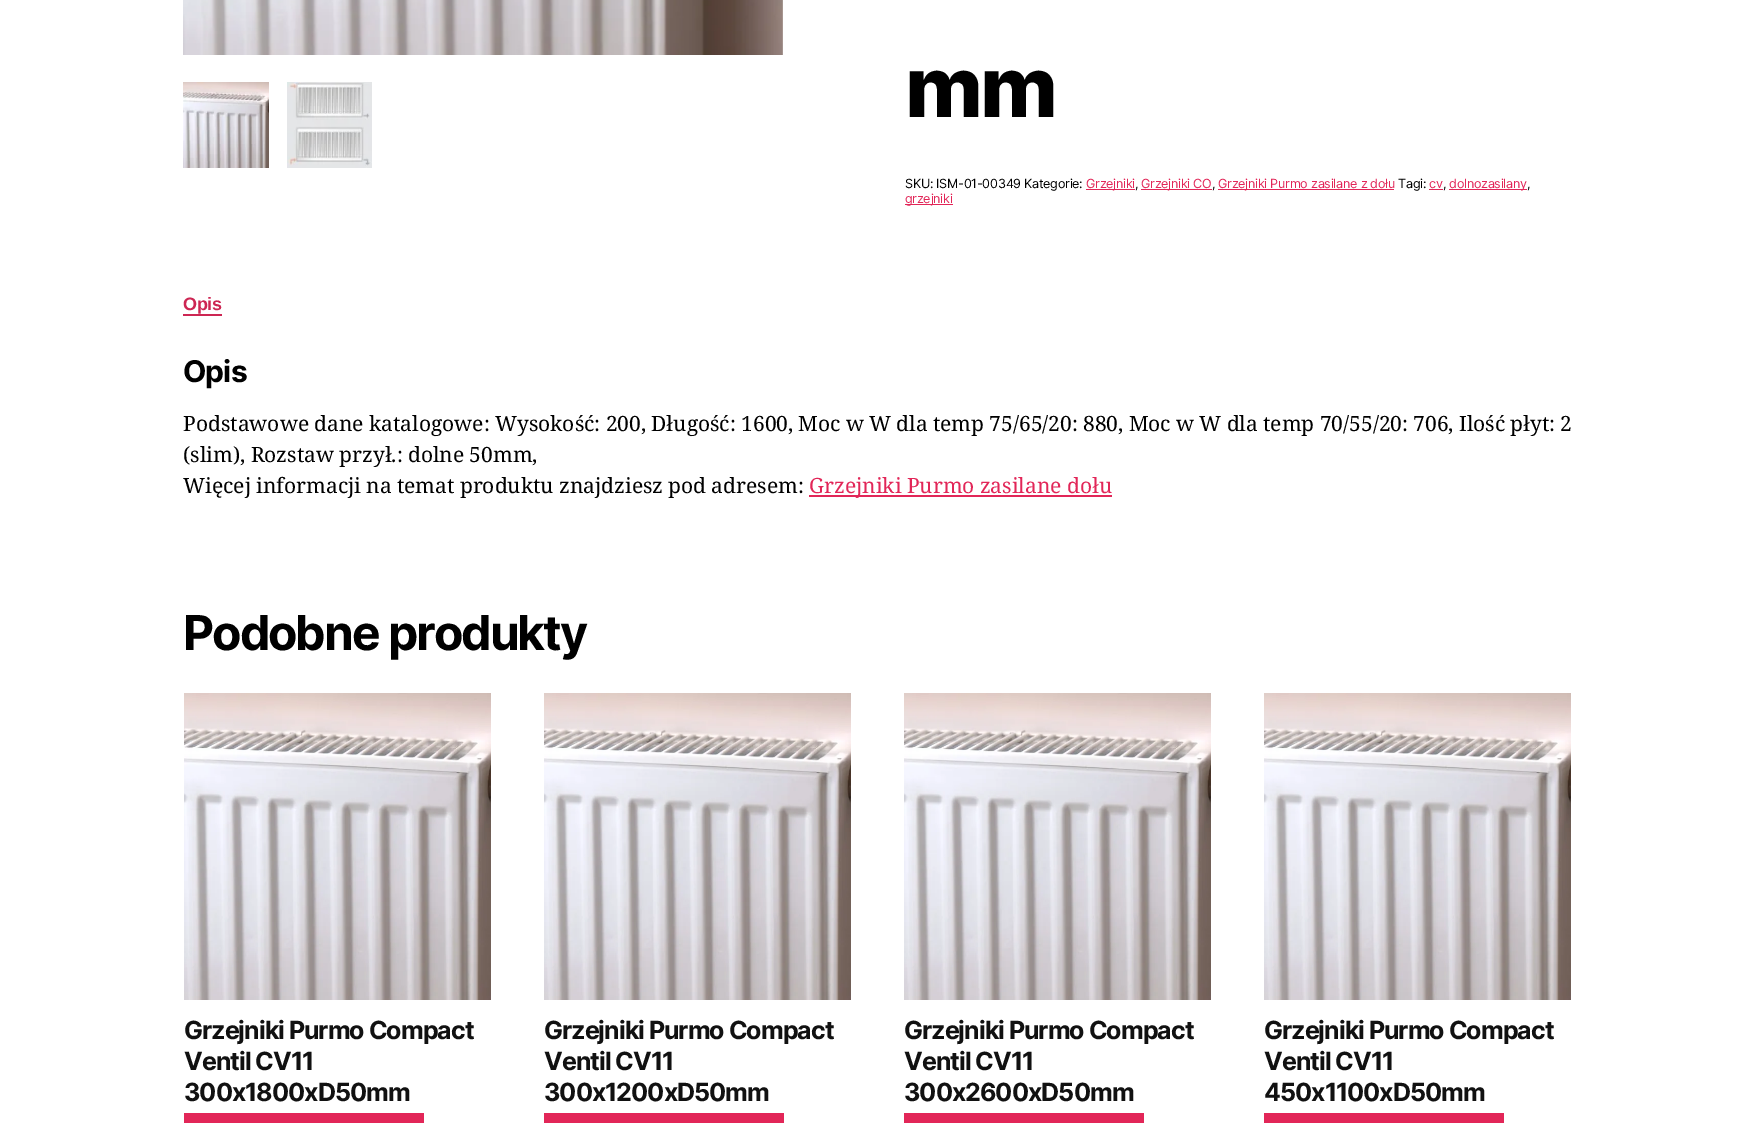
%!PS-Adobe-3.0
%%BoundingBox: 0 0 1755 1123
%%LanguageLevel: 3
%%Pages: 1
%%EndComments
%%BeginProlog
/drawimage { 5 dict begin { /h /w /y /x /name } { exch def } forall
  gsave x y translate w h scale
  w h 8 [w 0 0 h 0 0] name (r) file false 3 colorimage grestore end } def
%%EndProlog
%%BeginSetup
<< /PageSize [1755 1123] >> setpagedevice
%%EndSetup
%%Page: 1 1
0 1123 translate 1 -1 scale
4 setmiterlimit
1 setgray
0 0 1755 1123 rectfill
(images/1.raw) 183 0 600 55 drawimage
(images/2.raw) 183 82 86 86 drawimage
(images/3.raw) 287 82 85 86 drawimage
0.886 0.149 0.345 setrgbcolor
1086 189 49 1 rectfill
1141 189 71 1 rectfill
1218 189 176 1 rectfill
1429 189 14 1 rectfill
1449 189 78 1 rectfill
905 204 48 1 rectfill
0.804 0.149 0.325 setrgbcolor
183 314 39 2 rectfill
0.886 0.149 0.345 setrgbcolor
809 495 303 2 rectfill
(images/4.raw) 184 693 307 307 drawimage
184 1113 240 10 rectfill
(images/4.raw) 544 693 307 307 drawimage
544 1113 240 10 rectfill
(images/4.raw) 904 693 307 307 drawimage
904 1113 240 10 rectfill
(images/5.raw) 1264 693 307 307 drawimage
1264 1113 240 10 rectfill
/Inter-ExtraBold [84 0 0 -84 0 0] selectfont
0 setgray
905 117 moveto -3 0 (mm) ashow
/Inter-Regular [12.6 0 0 -12.6 0 0] selectfont
905 188 moveto -0.25 0 (SKU: ISM-01-00349 Kategorie:) ashow
0.886 0.149 0.345 setrgbcolor
1086 188 moveto -0.25 0 (Grzejniki) ashow
0 setgray
1135 188 moveto -0.25 0 (,) ashow
0.886 0.149 0.345 setrgbcolor
1141 188 moveto -0.25 0 (Grzejniki CO) ashow
0 setgray
1212 188 moveto -0.25 0 (,) ashow
0.886 0.149 0.345 setrgbcolor
1218 188 moveto -0.25 0 (Grzejniki Purmo zasilane z dołu) ashow
0 setgray
1398 188 moveto -0.25 0 (Tagi:) ashow
0.886 0.149 0.345 setrgbcolor
1429 188 moveto -0.25 0 (cv) ashow
0 setgray
1443 188 moveto -0.25 0 (,) ashow
0.886 0.149 0.345 setrgbcolor
1449 188 moveto -0.25 0 (dolnozasilany) ashow
0 setgray
1527 188 moveto -0.25 0 (,) ashow
0.886 0.149 0.345 setrgbcolor
905 203 moveto -0.25 0 (grzejniki) ashow
/LiberationSans-Bold [18 0 0 -18 0 0] selectfont
0.804 0.149 0.325 setrgbcolor
183 310 moveto -0.25 0 (Opis) ashow
/Inter-Bold [30 0 0 -30 0 0] selectfont
0 setgray
183 382 moveto -1 0 (Opis) ashow
/NotoSerif-Regular [21 0 0 -21 0 0] selectfont
183 431 moveto -0.25 0 32 (Podstawowe dane katalogowe: Wysokość: 200, Długość: 1600, Moc w W dla temp 75/65/20: 880, Moc w W dla temp 70/55/20: 706, Ilość płyt: 2) widthshow
183 462 moveto -0.25 0 32 (\(slim\), Rozstaw przył.: dolne 50mm,) widthshow
183 493 moveto -0.25 0 32 (Więcej informacji na temat produktu znajdziesz pod adresem:) widthshow
0.886 0.149 0.345 setrgbcolor
809 493 moveto -0.25 0 32 (Grzejniki Purmo zasilane dołu) widthshow
/Inter-Bold [48 0 0 -48 0 0] selectfont
0 setgray
183 650 moveto -2 0 (Podobne produkty) ashow
/Inter-Bold [25 0 0 -25 0 0] selectfont
0.067 setgray
184 1039 moveto -1 0 (Grzejniki Purmo Compact) ashow
184 1070 moveto -1 0 (Ventil CV11) ashow
184 1101 moveto -1 0 (300x1800xD50mm) ashow
544 1039 moveto -1 0 (Grzejniki Purmo Compact) ashow
544 1070 moveto -1 0 (Ventil CV11) ashow
544 1101 moveto -1 0 (300x1200xD50mm) ashow
904 1039 moveto -1 0 (Grzejniki Purmo Compact) ashow
904 1070 moveto -1 0 (Ventil CV11) ashow
904 1101 moveto -1 0 (300x2600xD50mm) ashow
1264 1039 moveto -1 0 (Grzejniki Purmo Compact) ashow
1264 1070 moveto -1 0 (Ventil CV11) ashow
1264 1101 moveto -1 0 (450x1100xD50mm) ashow
showpage
%%EOF
